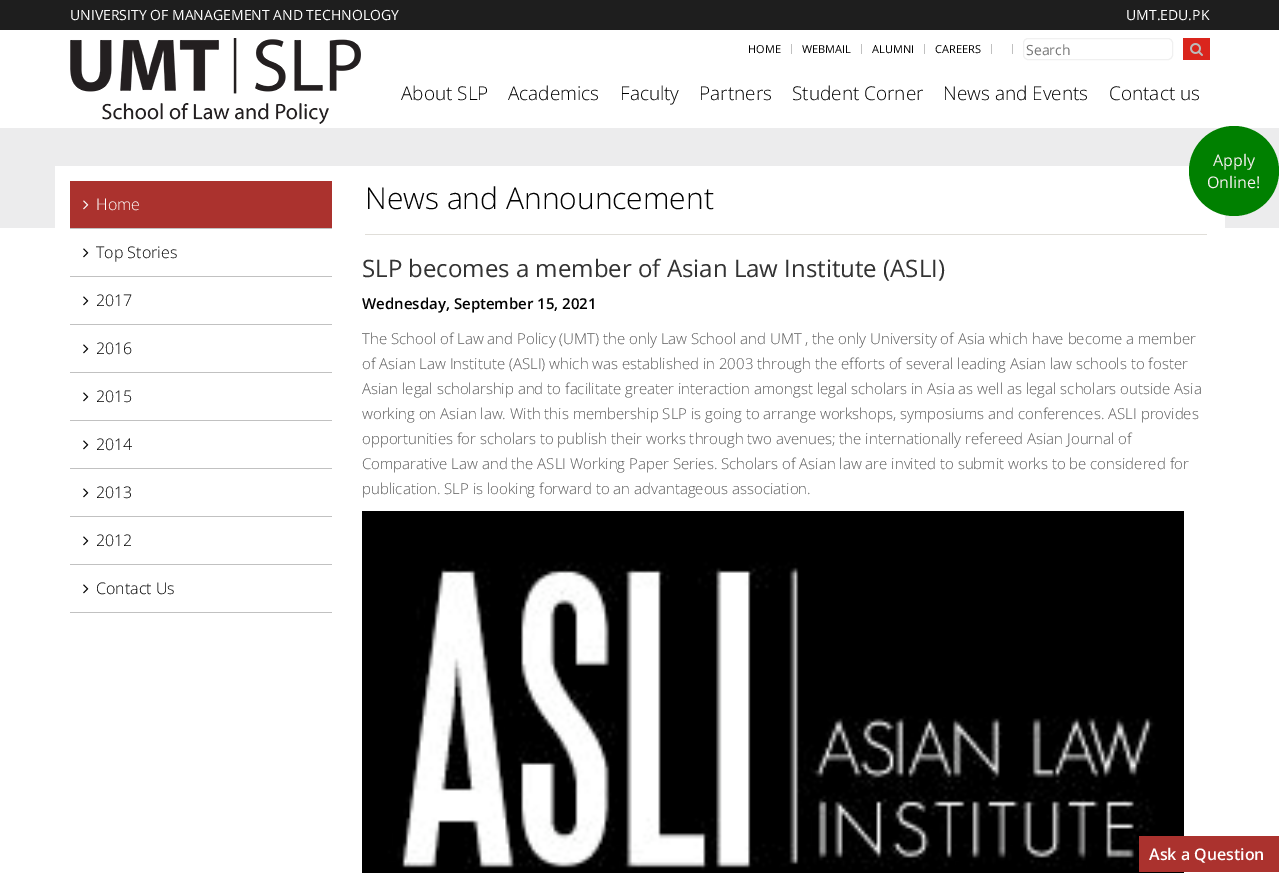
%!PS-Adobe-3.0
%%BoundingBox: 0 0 1279 873
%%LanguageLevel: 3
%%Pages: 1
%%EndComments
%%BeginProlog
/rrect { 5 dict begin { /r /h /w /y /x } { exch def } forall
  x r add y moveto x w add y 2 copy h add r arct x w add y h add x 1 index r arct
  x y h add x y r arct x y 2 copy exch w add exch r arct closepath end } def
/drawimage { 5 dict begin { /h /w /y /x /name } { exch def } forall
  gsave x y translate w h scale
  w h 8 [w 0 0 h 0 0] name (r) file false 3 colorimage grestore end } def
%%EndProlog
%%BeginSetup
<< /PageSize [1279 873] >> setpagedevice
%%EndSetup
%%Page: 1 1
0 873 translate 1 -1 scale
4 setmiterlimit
1 setgray
0 0 1279 873 rectfill
0.118 setgray
0 0 1279 30 rectfill
0.753 setgray
791 44 1 10 rectfill
861 44 1 10 rectfill
924 44 1 10 rectfill
991 44 1 10 rectfill
1012 44 1 10 rectfill
0.941 setgray
1023.5 38.5 149 21 4.5 rrect stroke
0.855 0.145 0.114 setrgbcolor
1183 38 27 22 rectfill
(images/1.raw) 1190 43 13 13 drawimage
(images/2.raw) 70 38 291 86 drawimage
0.925 0.925 0.929 setrgbcolor
0 128 1279 100 rectfill
1 setgray
55 166 1170 62 rectfill
0.757 setgray
70 228 262 1 rectfill
0.671 0.196 0.18 setrgbcolor
70 181 262 47 rectfill
(images/3.raw) 83 200 6 10 drawimage
0.757 setgray
70 276 262 1 rectfill
(images/4.raw) 83 248 6 10 drawimage
70 324 262 1 rectfill
(images/4.raw) 83 296 6 10 drawimage
70 372 262 1 rectfill
(images/4.raw) 83 344 6 10 drawimage
70 420 262 1 rectfill
(images/4.raw) 83 392 6 10 drawimage
70 468 262 1 rectfill
(images/4.raw) 83 440 6 10 drawimage
70 516 262 1 rectfill
(images/4.raw) 83 488 6 10 drawimage
70 564 262 1 rectfill
(images/4.raw) 83 536 6 10 drawimage
70 612 262 1 rectfill
(images/4.raw) 83 584 6 10 drawimage
0.878 0.871 0.851 setrgbcolor
365 234 842 1 rectfill
(images/5.raw) 362 511 822 362 drawimage
0 0.502 0 setrgbcolor
newpath 1234 171 45 0 360 arc closepath fill
0.671 0.196 0.18 setrgbcolor
1139 836 140 36 rectfill
/OpenSans-Regular [14 0 0 -14 0 0] selectfont
1 setgray
70 20 moveto (UNIVERSITY OF MANAGEMENT AND TECHNOLOGY) show
1126 20 moveto (UMT.EDU.PK) show
/OpenSans-Regular [11 0 0 -11 0 0] selectfont
0.004 setgray
748 53 moveto (HOME) show
802 53 moveto (WEBMAIL) show
872 53 moveto (ALUMNI) show
935 53 moveto (CAREERS) show
/OpenSans-Regular [14 0 0 -14 0 0] selectfont
0.467 setgray
1026 55 moveto (Search) show
/OpenSans-Light [19 0 0 -19 0 0] selectfont
0.004 setgray
401 100 moveto (About SLP) show
508 100 moveto (Academics) show
620 100 moveto (Faculty) show
699 100 moveto (Partners) show
792 100 moveto (Student Corner) show
943 100 moveto (News and Events) show
1109 100 moveto (Contact us) show
/OpenSans-Light [16 0 0 -16 0 0] selectfont
1 setgray
96 210 moveto (Home) show
0.004 setgray
96 258 moveto (Top Stories) show
96 306 moveto (2017) show
96 354 moveto (2016) show
96 402 moveto (2015) show
96 450 moveto (2014) show
96 498 moveto (2013) show
96 546 moveto (2012) show
96 594 moveto (Contact Us) show
/OpenSans-Light [30 0 0 -30 0 0] selectfont
365 209 moveto (News and Announcement) show
/OpenSans-Regular [24 0 0 -24 0 0] selectfont
0.2 setgray
362 277 moveto (SLP becomes a member of Asian Law Institute \(ASLI\)) show
/OpenSans-SemiBold [15 0 0 -15 0 0] selectfont
0.004 setgray
362 309 moveto (Wednesday, September 15, 2021) show
/OpenSans-Light [15 0 0 -15 0 0] selectfont
0.353 setgray
362 344 moveto (The School of Law and Policy \(UMT\) the only Law School and UMT , the only University of Asia which have become a member) show
362 369 moveto (of Asian Law Institute \(ASLI\) which was established in 2003 through the efforts of several leading Asian law schools to foster) show
362 394 moveto (Asian legal scholarship and to facilitate greater interaction amongst legal scholars in Asia as well as legal scholars outside Asia) show
362 419 moveto (working on Asian law. With this membership SLP is going to arrange workshops, symposiums and conferences. ASLI provides) show
362 444 moveto (opportunities for scholars to publish their works through two avenues; the internationally refereed Asian Journal of) show
362 469 moveto (Comparative Law and the ASLI Working Paper Series. Scholars of Asian law are invited to submit works to be considered for) show
362 494 moveto (publication. SLP is looking forward to an advantageous association.) show
/OpenSans-Regular [16 0 0 -16 0 0] selectfont
0.961 0.937 0.937 setrgbcolor
1213 166 moveto (Apply) show
1207 188 moveto (Online!) show
/OpenSans-SemiBold [16 0 0 -16 0 0] selectfont
1 setgray
1149 860 moveto (Ask a Question) show
showpage
%%EOF
